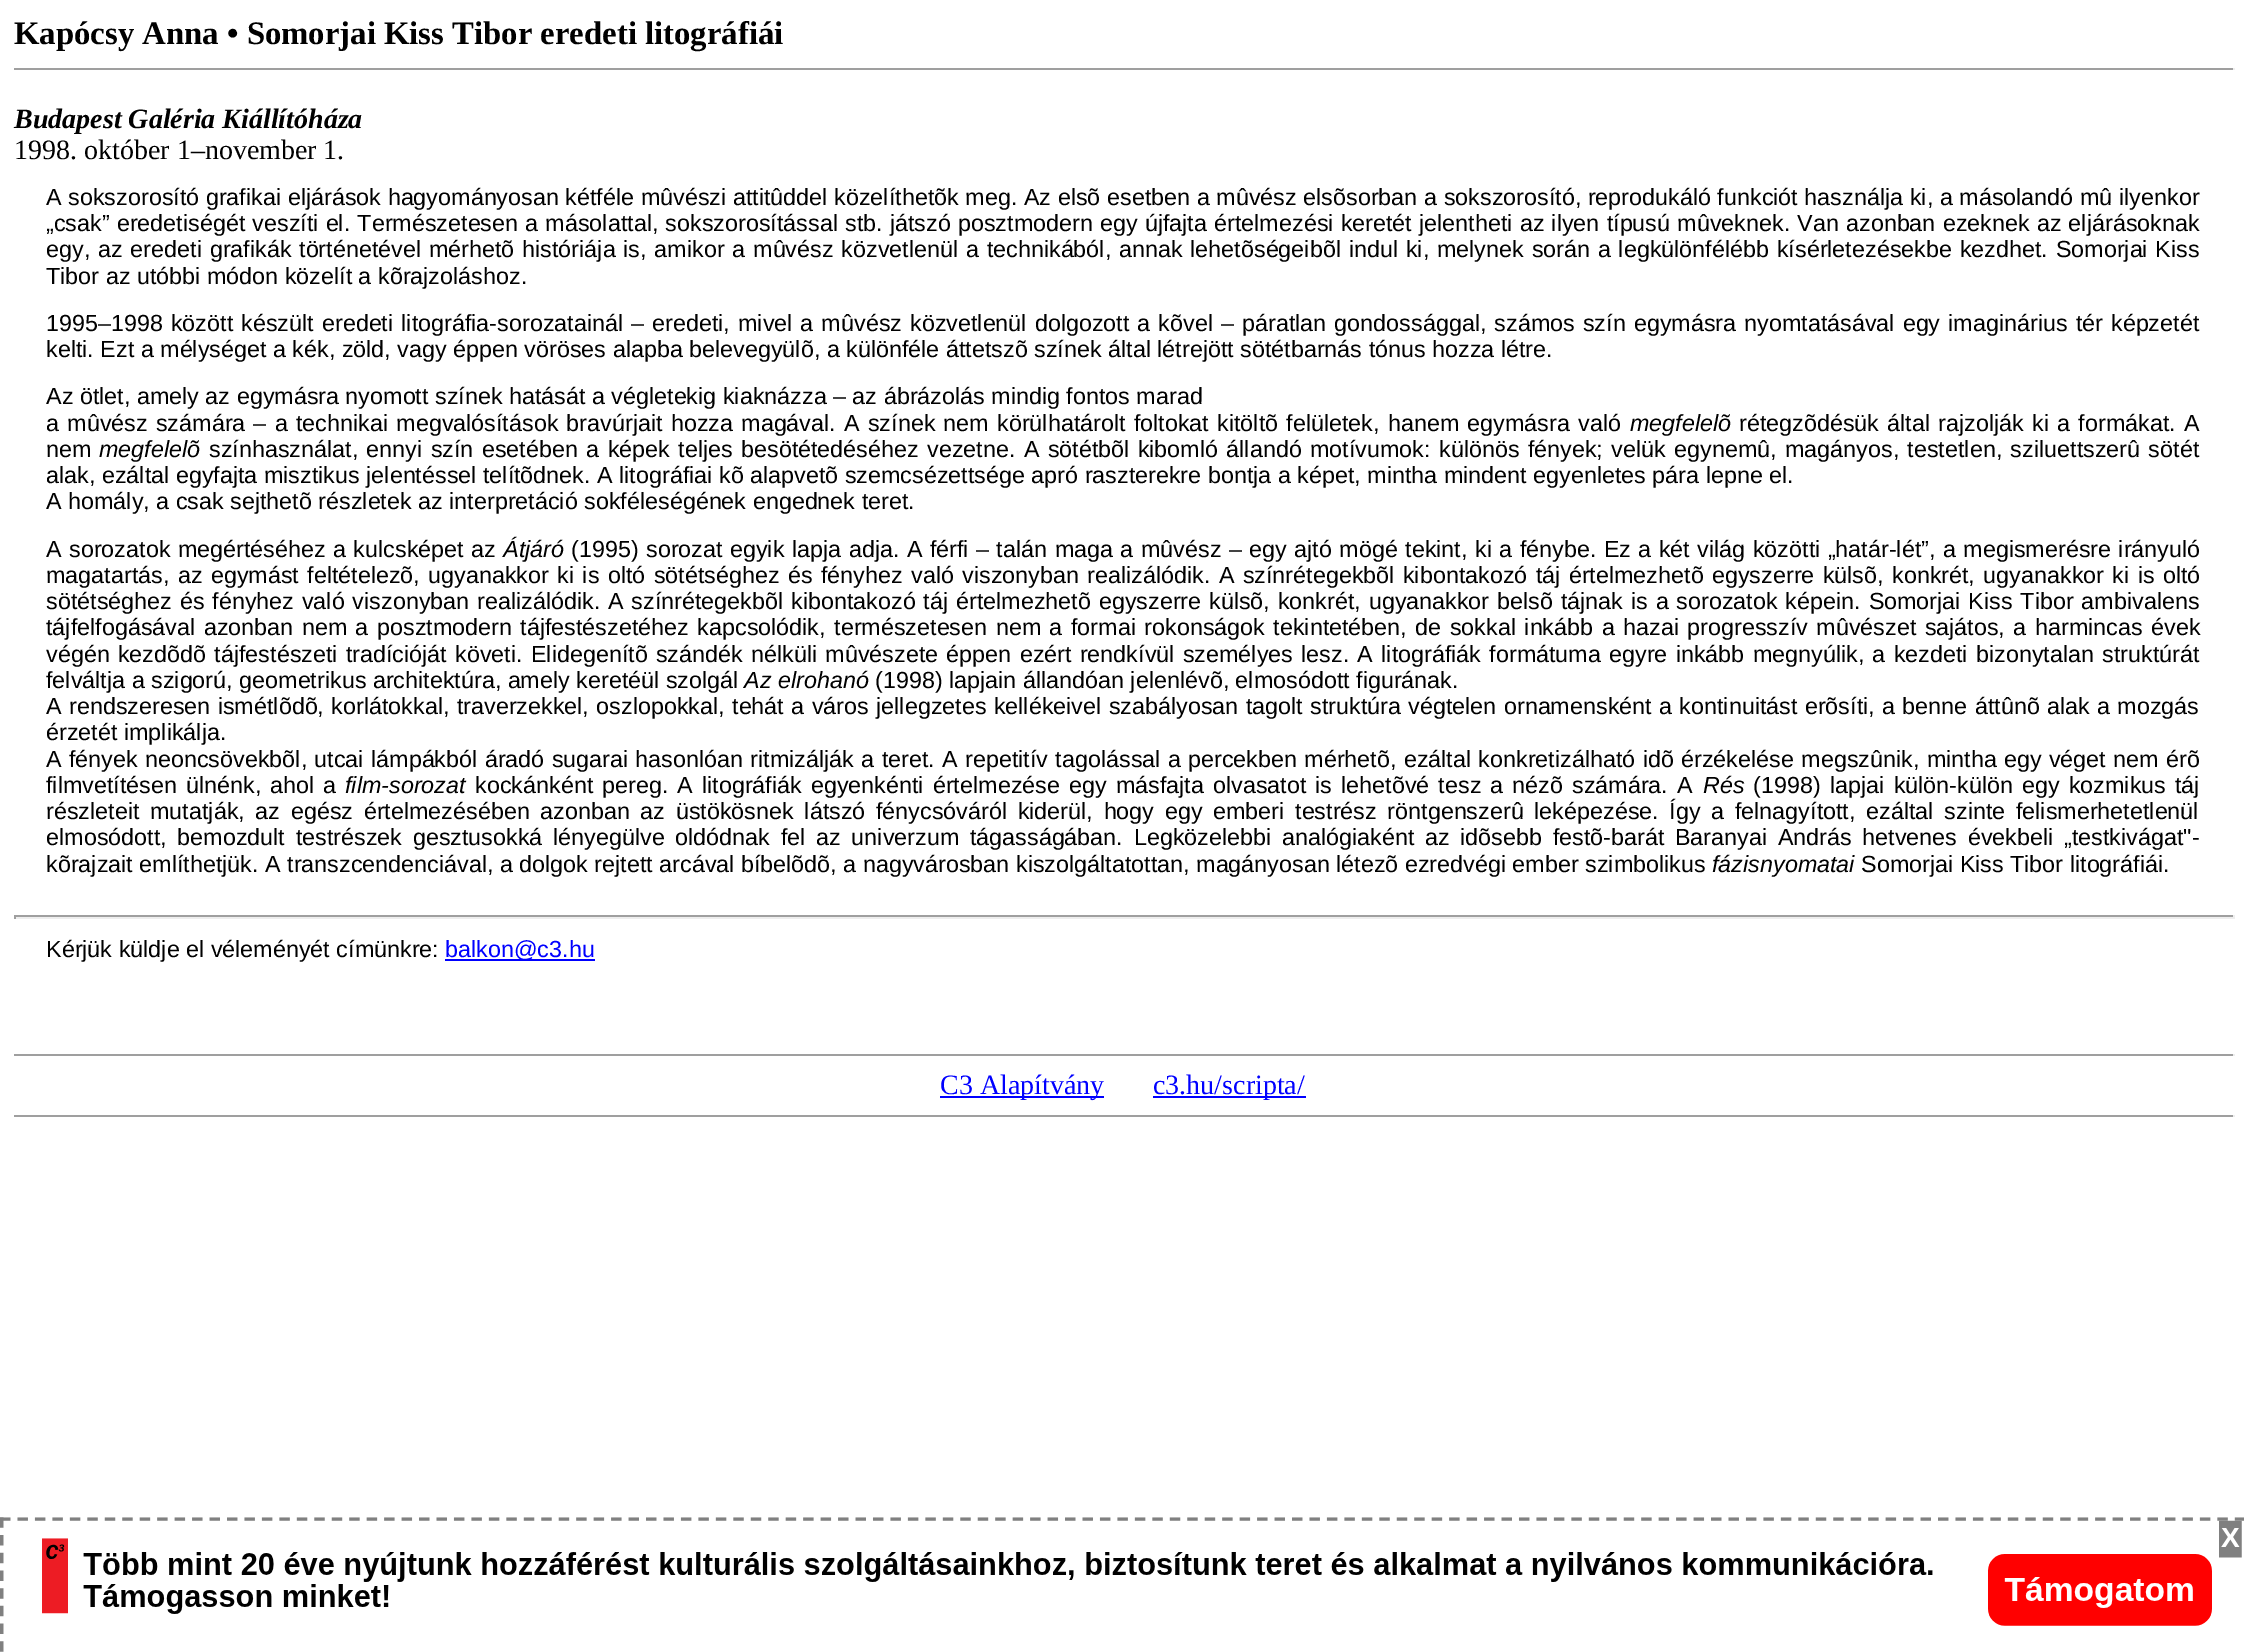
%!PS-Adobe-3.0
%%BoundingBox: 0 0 2244 1652
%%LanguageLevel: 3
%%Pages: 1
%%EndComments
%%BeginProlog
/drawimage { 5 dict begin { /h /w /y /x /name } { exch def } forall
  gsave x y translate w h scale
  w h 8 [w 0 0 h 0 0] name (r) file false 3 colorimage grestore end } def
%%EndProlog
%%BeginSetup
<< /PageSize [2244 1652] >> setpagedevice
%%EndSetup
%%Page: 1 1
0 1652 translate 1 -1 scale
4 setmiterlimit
1 setgray
0 0 2244 1652 rectfill
0.624 setgray
14 68 2221 2 rectfill
0.933 setgray
2233 68 2 2 rectfill
0.624 setgray
14 915 2221 2 rectfill
0.933 setgray
2233 915 2 4 rectfill
14 917 2221 2 rectfill
0.624 setgray
14 915 2 4 rectfill
0 0 1 setrgbcolor
445 959 150 2 rectfill
0.624 setgray
14 1054 2221 2 rectfill
0.933 setgray
2233 1054 2 2 rectfill
0 0 1 setrgbcolor
940 1096 164 2 rectfill
1153 1096 153 2 rectfill
0.624 setgray
14 1115 2221 2 rectfill
0.933 setgray
2233 1115 2 2 rectfill
(images/1.raw) 0 1517 2244 135 drawimage
/LiberationSerif-Bold [32.75 0 0 -32.75 0 0] selectfont
0 setgray
14 44 moveto (Kapócsy Anna • Somorjai Kiss Tibor eredeti litográfiái) show
/LiberationSerif-BoldItalic [28 0 0 -28 0 0] selectfont
14 128 moveto (Budapest Galéria Kiállítóháza) show
/LiberationSerif-Regular [28 0 0 -28 0 0] selectfont
14 159 moveto (1998. október 1–november 1.) show
/LiberationSans-Regular [23.33 0 0 -23.33 0 0] selectfont
46 205 moveto 0.15 0 32 (A sokszorosító grafikai eljárások hagyományosan kétféle mûvészi attitûddel közelíthetõk meg. Az elsõ esetben a mûvész elsõsorban a sokszorosító, reprodukáló funkciót használja ki, a másolandó mû ilyenkor) widthshow
46 231 moveto 0.7 0 32 („csak” eredetiségét veszíti el. Természetesen a másolattal, sokszorosítással stb. játszó posztmodern egy újfajta értelmezési keretét jelentheti az ilyen típusú mûveknek. Van azonban ezeknek az eljárásoknak) widthshow
46 257 moveto 1.35 0 32 (egy, az eredeti grafikák történetével mérhetõ históriája is, amikor a mûvész közvetlenül a technikából, annak lehetõségeibõl indul ki, melynek során a legkülönfélébb kísérletezésekbe kezdhet. Somorjai Kiss) widthshow
46 284 moveto (Tibor az utóbbi módon közelít a kõrajzoláshoz.) show
46 331 moveto 1.6 0 32 (1995–1998 között készült eredeti litográfia-sorozatainál – eredeti, mivel a mûvész közvetlenül dolgozott a kõvel – páratlan gondossággal, számos szín egymásra nyomtatásával egy imaginárius tér képzetét) widthshow
46 357 moveto (kelti. Ezt a mélységet a kék, zöld, vagy éppen vöröses alapba belevegyülõ, a különféle áttetszõ színek által létrejött sötétbarnás tónus hozza létre.) show
46 404 moveto (Az ötlet, amely az egymásra nyomott színek hatását a végletekig kiaknázza – az ábrázolás mindig fontos marad) show
46 431 moveto 1.75 0 32 (a mûvész számára – a technikai megvalósítások bravúrjait hozza magával. A színek nem körülhatárolt foltokat kitöltõ felületek, hanem egymásra való) widthshow
/LiberationSans-Italic [23.33 0 0 -23.33 0 0] selectfont
1630 431 moveto (megfelelõ) show
/LiberationSans-Regular [23.33 0 0 -23.33 0 0] selectfont
1739 431 moveto 1.75 0 32 (rétegzõdésük által rajzolják ki a formákat. A) widthshow
46 457 moveto (nem) show
/LiberationSans-Italic [23.33 0 0 -23.33 0 0] selectfont
99 457 moveto (megfelelõ) show
/LiberationSans-Regular [23.33 0 0 -23.33 0 0] selectfont
209 457 moveto 1.9 0 32 (színhasználat, ennyi szín esetében a képek teljes besötétedéséhez vezetne. A sötétbõl kibomló állandó motívumok: különös fények; velük egynemû, magányos, testetlen, sziluettszerû sötét) widthshow
46 483 moveto (alak, ezáltal egyfajta misztikus jelentéssel telítõdnek. A litográfiai kõ alapvetõ szemcsézettsége apró raszterekre bontja a képet, mintha mindent egyenletes pára lepne el.) show
46 509 moveto (A homály, a csak sejthetõ részletek az interpretáció sokféleségének engednek teret.) show
46 557 moveto 1 0 32 (A sorozatok megértéséhez a kulcsképet az) widthshow
/LiberationSans-Italic [23.33 0 0 -23.33 0 0] selectfont
503 557 moveto (Átjáró) show
/LiberationSans-Regular [23.33 0 0 -23.33 0 0] selectfont
571 557 moveto 1 0 32 (\(1995\) sorozat egyik lapja adja. A férfi – talán maga a mûvész – egy ajtó mögé tekint, ki a fénybe. Ez a két világ közötti „határ-lét”, a megismerésre irányuló) widthshow
46 583 moveto 1.9 0 32 (magatartás, az egymást feltételezõ, ugyanakkor ki is oltó sötétséghez és fényhez való viszonyban realizálódik. A színrétegekbõl kibontakozó táj értelmezhetõ egyszerre külsõ, konkrét, ugyanakkor ki is oltó) widthshow
46 609 moveto 1.4 0 32 (sötétséghez és fényhez való viszonyban realizálódik. A színrétegekbõl kibontakozó táj értelmezhetõ egyszerre külsõ, konkrét, ugyanakkor belsõ tájnak is a sorozatok képein. Somorjai Kiss Tibor ambivalens) widthshow
46 635 moveto 2 0 32 (tájfelfogásával azonban nem a posztmodern tájfestészetéhez kapcsolódik, természetesen nem a formai rokonságok tekintetében, de sokkal inkább a hazai progresszív mûvészet sajátos, a harmincas évek) widthshow
46 662 moveto 1.8 0 32 (végén kezdõdõ tájfestészeti tradícióját követi. Elidegenítõ szándék nélküli mûvészete éppen ezért rendkívül személyes lesz. A litográfiák formátuma egyre inkább megnyúlik, a kezdeti bizonytalan struktúrát) widthshow
46 688 moveto (felváltja a szigorú, geometrikus architektúra, amely keretéül szolgál) show
/LiberationSans-Italic [23.33 0 0 -23.33 0 0] selectfont
744 688 moveto (Az elrohanó) show
/LiberationSans-Regular [23.33 0 0 -23.33 0 0] selectfont
875 688 moveto (\(1998\) lapjain állandóan jelenlévõ, elmosódott figurának.) show
46 714 moveto 0.9 0 32 (A rendszeresen ismétlõdõ, korlátokkal, traverzekkel, oszlopokkal, tehát a város jellegzetes kellékeivel szabályosan tagolt struktúra végtelen ornamensként a kontinuitást erõsíti, a benne áttûnõ alak a mozgás) widthshow
46 740 moveto (érzetét implikálja.) show
46 767 moveto 0.85 0 32 (A fények neoncsövekbõl, utcai lámpákból áradó sugarai hasonlóan ritmizálják a teret. A repetitív tagolással a percekben mérhetõ, ezáltal konkretizálható idõ érzékelése megszûnik, mintha egy véget nem érõ) widthshow
46 793 moveto 2.6 0 32 (filmvetítésen ülnénk, ahol a) widthshow
/LiberationSans-Italic [23.33 0 0 -23.33 0 0] selectfont
345 793 moveto (film-sorozat) show
/LiberationSans-Regular [23.33 0 0 -23.33 0 0] selectfont
475 793 moveto 2.6 0 32 (kockánként pereg. A litográfiák egyenkénti értelmezése egy másfajta olvasatot is lehetõvé tesz a nézõ számára. A) widthshow
/LiberationSans-Italic [23.33 0 0 -23.33 0 0] selectfont
1703 793 moveto (Rés) show
/LiberationSans-Regular [23.33 0 0 -23.33 0 0] selectfont
1753 793 moveto (\(1998\)) show
1830 793 moveto 2.6 0 32 (lapjai külön-külön egy kozmikus táj) widthshow
46 819 moveto 4.2 0 32 (részleteit mutatják, az egész értelmezésében azonban az üstökösnek látszó fénycsóváról kiderül, hogy egy emberi testrész röntgenszerû leképezése. Így a felnagyított, ezáltal szinte felismerhetetlenül) widthshow
46 845 moveto 4.25 0 32 (elmosódott, bemozdult testrészek gesztusokká lényegülve oldódnak fel az univerzum tágasságában. Legközelebbi analógiaként az idõsebb festõ-barát Baranyai András hetvenes évekbeli „testkivágat"-) widthshow
46 872 moveto (kõrajzait említhetjük. A transzcendenciával, a dolgok rejtett arcával bíbelõdõ, a nagyvárosban kiszolgáltatottan, magányosan létezõ ezredvégi ember szimbolikus) show
/LiberationSans-Italic [23.33 0 0 -23.33 0 0] selectfont
1712 872 moveto (fázisnyomatai) show
/LiberationSans-Regular [23.33 0 0 -23.33 0 0] selectfont
1861 872 moveto (Somorjai Kiss Tibor litográfiái.) show
46 957 moveto (Kérjük küldje el véleményét címünkre:) show
0 0 1 setrgbcolor
445 957 moveto (balkon@c3.hu) show
/LiberationSerif-Regular [28 0 0 -28 0 0] selectfont
940 1094 moveto (C3 Alapítvány) show
1153 1094 moveto (c3.hu/scripta/) show
showpage
%%EOF
